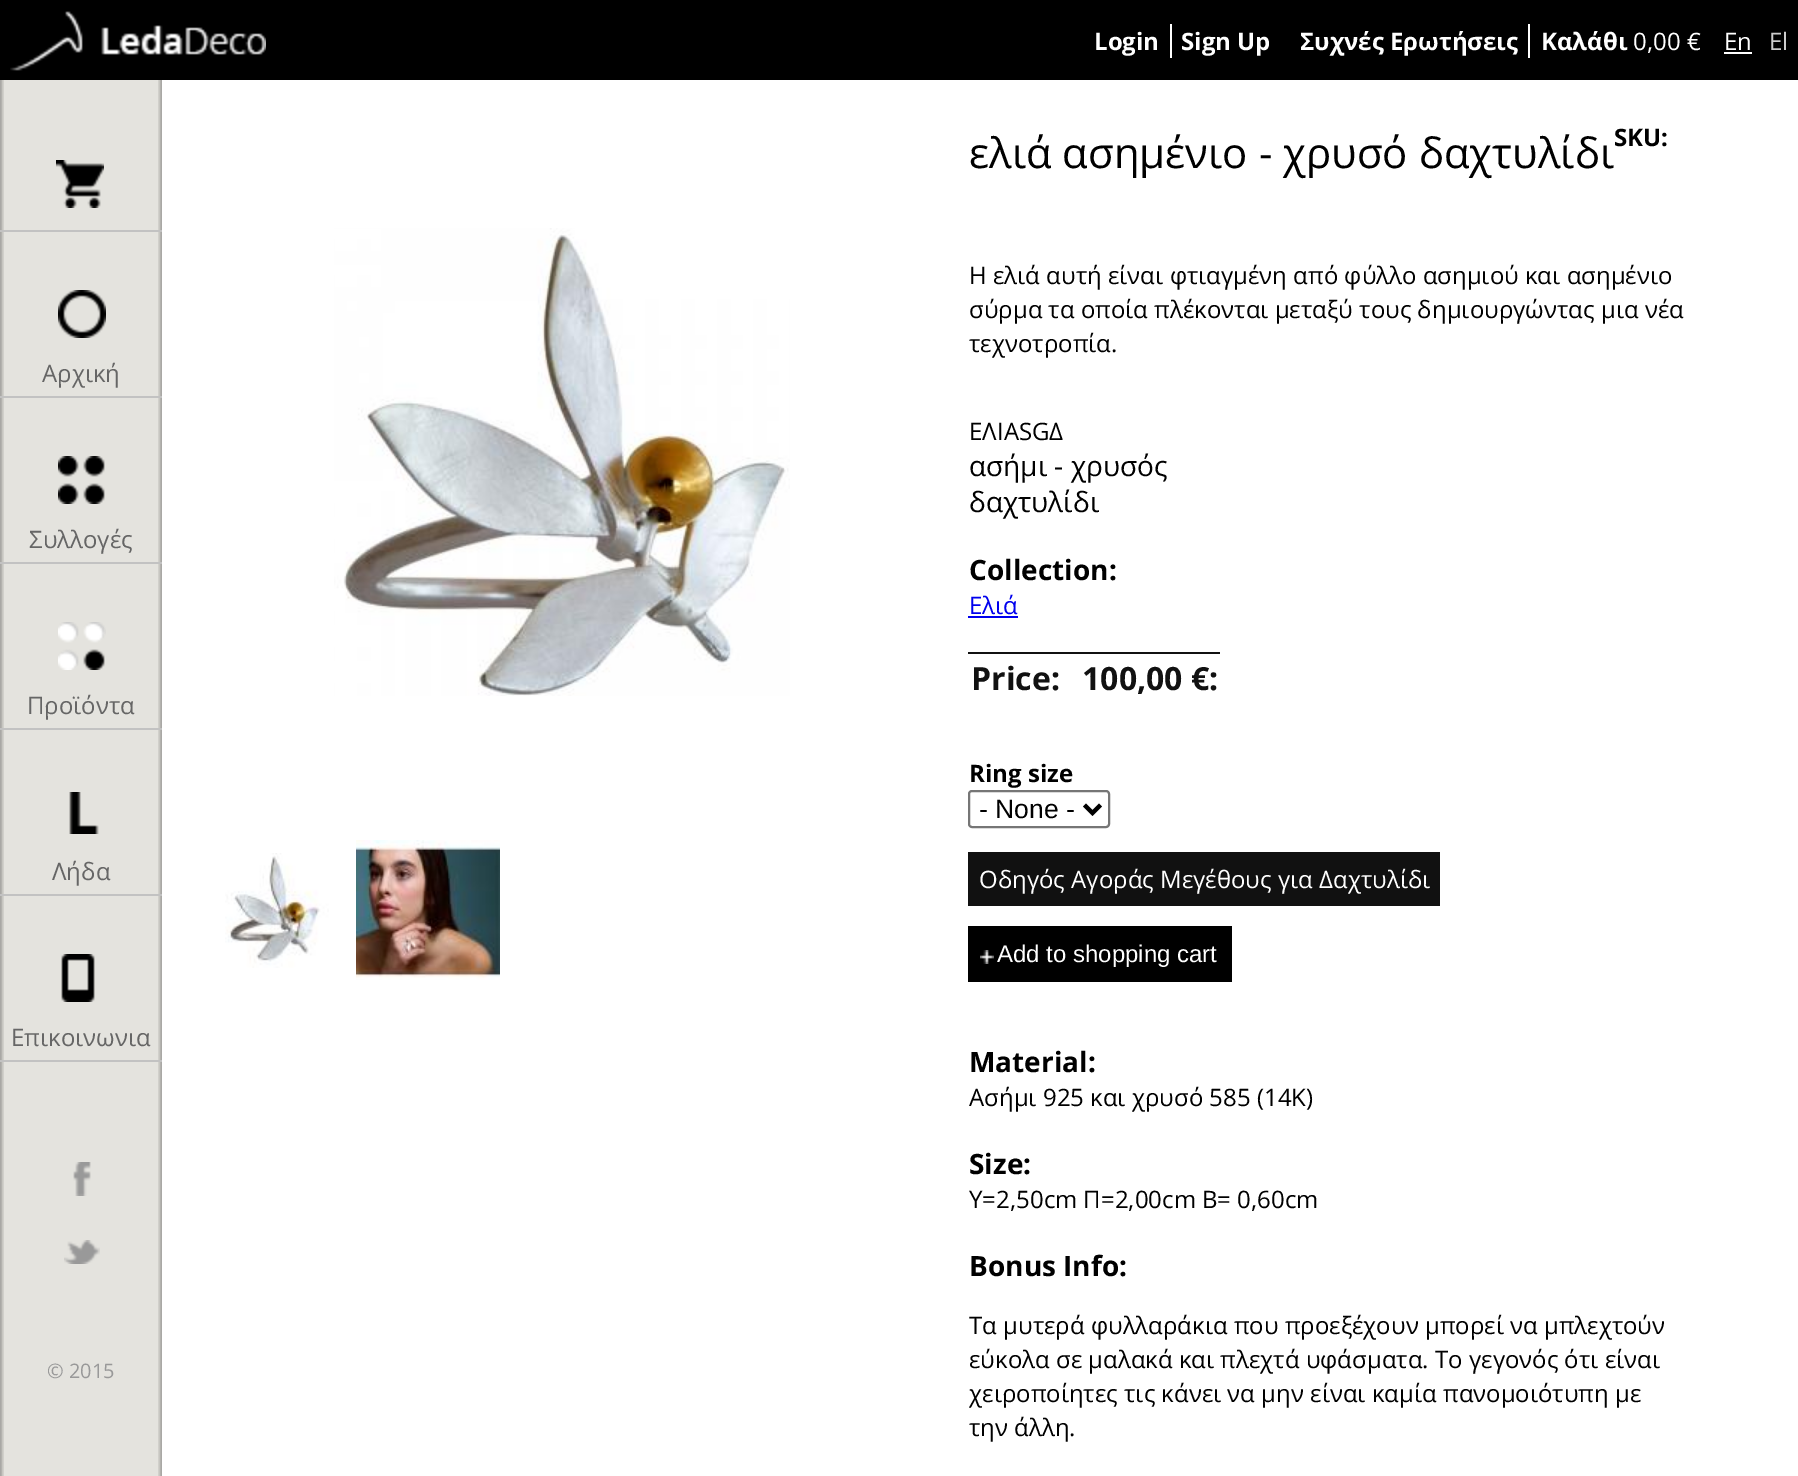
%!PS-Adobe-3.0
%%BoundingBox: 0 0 1798 1476
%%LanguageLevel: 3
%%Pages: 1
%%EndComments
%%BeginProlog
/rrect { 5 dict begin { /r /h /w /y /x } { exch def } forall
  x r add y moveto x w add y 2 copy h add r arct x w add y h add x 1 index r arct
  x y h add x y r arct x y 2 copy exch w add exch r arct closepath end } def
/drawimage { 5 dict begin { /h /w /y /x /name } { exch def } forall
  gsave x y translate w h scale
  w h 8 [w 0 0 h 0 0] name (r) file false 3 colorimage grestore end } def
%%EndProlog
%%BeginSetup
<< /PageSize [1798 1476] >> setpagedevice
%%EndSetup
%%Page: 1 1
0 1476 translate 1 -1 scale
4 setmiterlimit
1 setgray
0 0 1798 1476 rectfill
0 setgray
0 0 1798 80 rectfill
(images/1.raw) 10 11 256 60 drawimage
1 setgray
1170 24 2 34 rectfill
1528 24 2 34 rectfill
1724 52 28 2 rectfill
0.894 0.89 0.871 setrgbcolor
4 80 154 1396 rectfill
(images/2.raw) 0 80 4 1396 drawimage
(images/3.raw) 158 80 4 1396 drawimage
0.761 setgray
0 230 162 2 rectfill
(images/4.raw) 56 160 48 48 drawimage
0 396 162 2 rectfill
(images/5.raw) 58 290 48 48 drawimage
0 562 162 2 rectfill
(images/6.raw) 58 456 47 48 drawimage
0 728 162 2 rectfill
(images/7.raw) 58 622 48 48 drawimage
0 894 162 2 rectfill
(images/8.raw) 69 792 30 42 drawimage
0 1060 162 2 rectfill
(images/9.raw) 61 954 34 48 drawimage
(images/10.raw) 73 1162 18 34 drawimage
(images/11.raw) 64 1240 36 24 drawimage
(images/12.raw) 334 228 456 468 drawimage
(images/13.raw) 225 853 104 115 drawimage
(images/14.raw) 356 840 144 140 drawimage
0 0 0.933 setrgbcolor
968 616 50 2 rectfill
0.067 setgray
968 652 252 2 rectfill
0.463 setgray
2 setlinewidth
969 791 140 36 3 rrect stroke
0 setgray
4 setlinewidth
newpath 1084.5 805 moveto 1092.5 813 lineto 1100.5 805 lineto stroke
0.067 setgray
968 852 472 54 rectfill
0 setgray
968 926 264 56 rectfill
(images/15.raw) 980 950 14 14 drawimage
/OpenSans-Bold [24 0 0 -24 0 0] selectfont
1 setgray
1094 50 moveto (Login) show
1181 50 moveto (Sign Up) show
1300 50 moveto (Συχνές Ερωτήσεις) show
1541 50 moveto (Καλάθι) show
/OpenSans-Regular [24 0 0 -24 0 0] selectfont
1633 50 moveto (0,00 €) show
1724 50 moveto (En) show
0.8 setgray
1769 50 moveto (El) show
0.4 setgray
42 382 moveto (Αρχική) show
29 548 moveto (Συλλογές) show
27 714 moveto (Προϊόντα) show
52 880 moveto (Λήδα) show
11 1046 moveto (Επικοινωνια) show
/OpenSans-Regular [20 0 0 -20 0 0] selectfont
0.6 setgray
47 1378 moveto (© 2015) show
/OpenSans-Bold [24 0 0 -24 0 0] selectfont
0 setgray
1614 146 moveto (SKU:) show
/OpenSans-Regular [24 0 0 -24 0 0] selectfont
969 440 moveto (ΕΛΙΑSGΔ) show
/OpenSans-Regular [42 0 0 -42 0 0] selectfont
969 168 moveto (ελιά ασημένιο - χρυσό δαχτυλίδι) show
/OpenSans-Regular [24 0 0 -24 0 0] selectfont
969 284 moveto (Η ελιά αυτή είναι φτιαγμένη από φύλλο ασημιού και ασημένιο) show
969 318 moveto (σύρμα τα οποία πλέκονται μεταξύ τους δημιουργώντας μια νέα) show
969 352 moveto (τεχνοτροπία.) show
/OpenSans-Regular [28 0 0 -28 0 0] selectfont
969 476 moveto (ασήμι - χρυσός) show
969 512 moveto (δαχτυλίδι) show
/OpenSans-Bold [28 0 0 -28 0 0] selectfont
969 580 moveto (Collection:) show
/OpenSans-Regular [24 0 0 -24 0 0] selectfont
0 0 0.933 setrgbcolor
969 614 moveto (Ελιά) show
/OpenSans-Bold [32 0 0 -32 0 0] selectfont
0.067 setgray
971 690 moveto (Price:) show
1082 690 moveto (100,00 €:) show
/OpenSans-Bold [24 0 0 -24 0 0] selectfont
0 setgray
969 782 moveto (Ring size) show
/LiberationSans-Regular [26.5 0 0 -26.5 0 0] selectfont
979 818 moveto (- None -) show
/OpenSans-Regular [24 0 0 -24 0 0] selectfont
1 setgray
979 888 moveto (Οδηγός Αγοράς Μεγέθους για Δαχτυλίδι) show
/LiberationSans-Regular [24 0 0 -24 0 0] selectfont
997 962 moveto (Add to shopping cart) show
/OpenSans-Bold [28 0 0 -28 0 0] selectfont
0 setgray
969 1072 moveto (Material:) show
/OpenSans-Regular [24 0 0 -24 0 0] selectfont
969 1106 moveto (Ασήμι 925 και χρυσό 585 \(14Κ\)) show
/OpenSans-Bold [28 0 0 -28 0 0] selectfont
969 1174 moveto (Size:) show
/OpenSans-Regular [24 0 0 -24 0 0] selectfont
969 1208 moveto (Υ=2,50cm Π=2,00cm Β= 0,60cm) show
/OpenSans-Bold [28 0 0 -28 0 0] selectfont
969 1276 moveto (Bonus Info:) show
/OpenSans-Regular [24 0 0 -24 0 0] selectfont
969 1334 moveto (Τα μυτερά φυλλαράκια που προεξέχουν μπορεί να μπλεχτούν) show
969 1368 moveto (εύκολα σε μαλακά και πλεχτά υφάσματα. Το γεγονός ότι είναι) show
969 1402 moveto (χειροποίητες τις κάνει να μην είναι καμία πανομοιότυπη με) show
969 1436 moveto (την άλλη.) show
showpage
%%EOF
